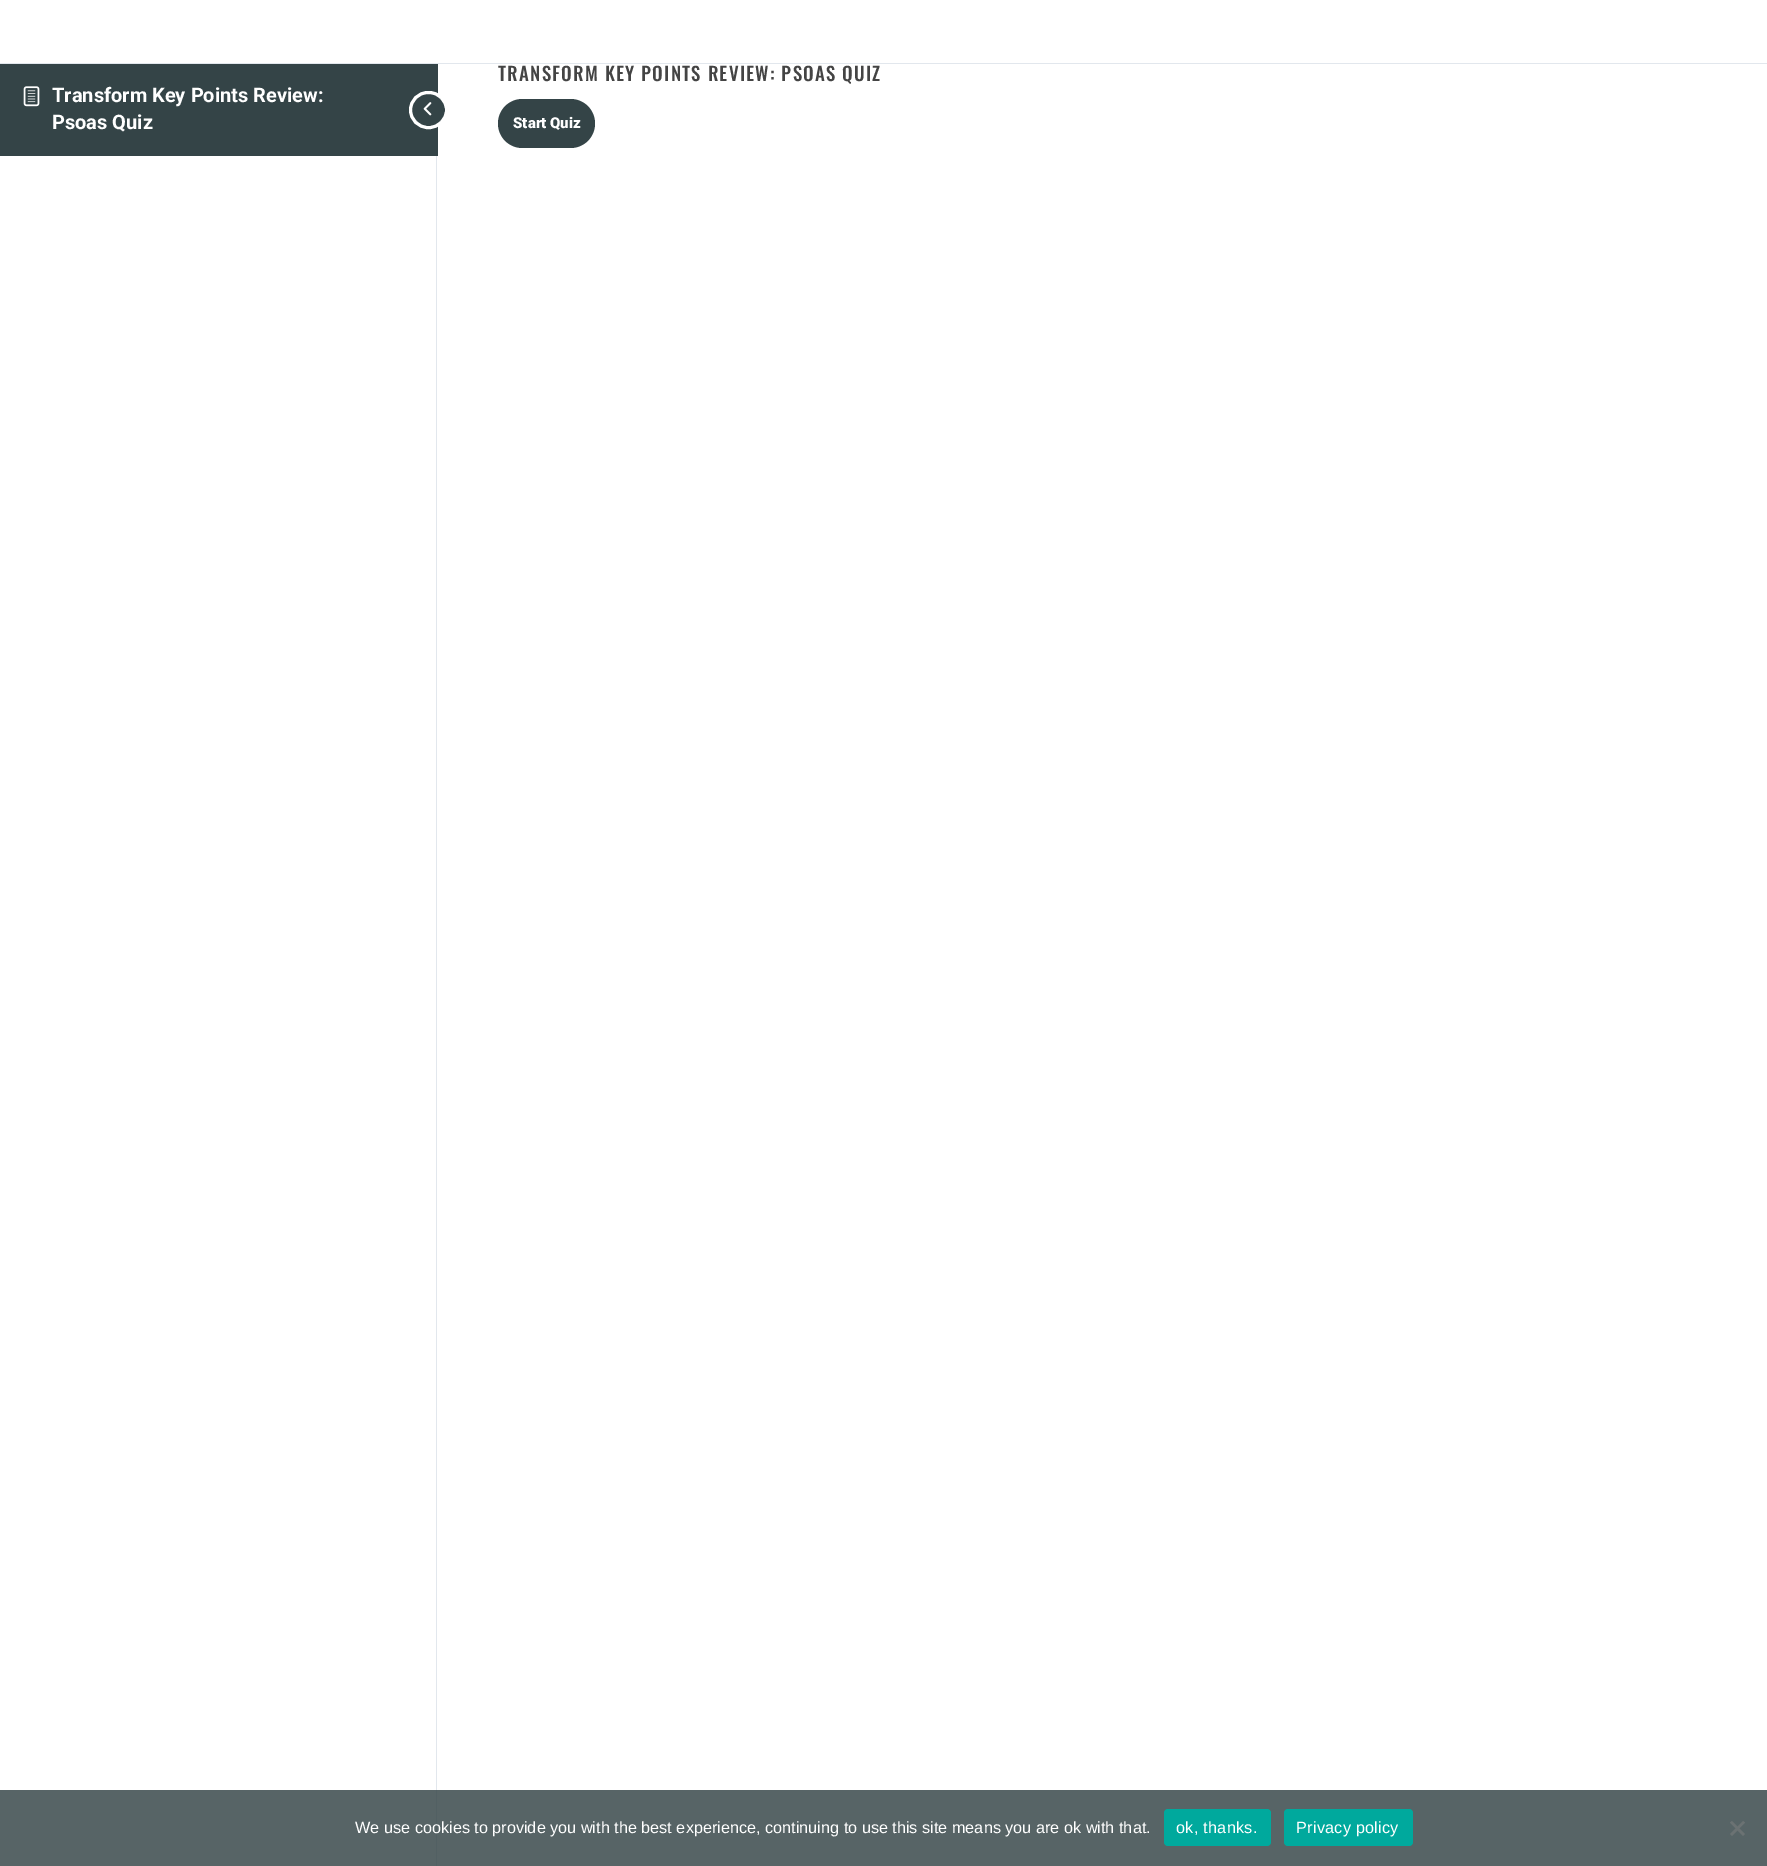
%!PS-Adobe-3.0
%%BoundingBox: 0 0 1767 1866
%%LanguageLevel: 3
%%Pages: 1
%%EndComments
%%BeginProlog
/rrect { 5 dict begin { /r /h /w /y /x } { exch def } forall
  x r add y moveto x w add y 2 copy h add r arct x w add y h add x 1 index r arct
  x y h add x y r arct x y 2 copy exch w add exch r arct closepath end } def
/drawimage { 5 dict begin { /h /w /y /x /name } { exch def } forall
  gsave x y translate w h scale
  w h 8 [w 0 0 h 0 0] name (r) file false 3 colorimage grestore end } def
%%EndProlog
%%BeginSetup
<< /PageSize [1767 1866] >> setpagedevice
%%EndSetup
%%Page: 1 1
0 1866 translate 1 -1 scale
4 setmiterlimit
1 setgray
0 0 1767 1866 rectfill
0.341 0.392 0.4 setrgbcolor
0 1790 1767 76 rectfill
0.886 0.906 0.929 setrgbcolor
436 156 1 1634 rectfill
0.322 0.376 0.388 setrgbcolor
436 1790 1 76 rectfill
0.204 0.267 0.278 setrgbcolor
0 64 438 92 rectfill
(images/1.raw) 23 86 17 21 drawimage
410.5 92.5 36 35 17.5 rrect gsave fill grestore
1 setgray
3 setlinewidth
stroke
(images/2.raw) 423 102 9 14 drawimage
0.886 0.906 0.929 setrgbcolor
0 63 1767 1 rectfill
0.204 0.267 0.278 setrgbcolor
498 99 97 49 24.5 rrect fill
0 0.663 0.616 setrgbcolor
1164 1809 107 37 4 rrect fill
1284 1809 129 37 4 rrect fill
0.42 0.447 0.451 setrgbcolor
newpath 1743 1821 moveto 1745 1822.5 lineto 1732 1836 lineto 1730 1834 lineto closepath fill
newpath 1730 1822.5 moveto 1732 1821 lineto 1745 1834 lineto 1743 1836 lineto closepath fill
/Roboto-Bold [20 0 0 -20 0 0] selectfont
1 setgray
52 102 moveto (Transform Key Points Review:) show
52 129 moveto (Psoas Quiz) show
/Oswald-Medium [18.75 0 0 -18.75 0 0] selectfont
0.267 setgray
498 81 moveto 1.25 0 (TRANSFORM KEY POINTS REVIEW: PSOAS QUIZ) ashow
/Roboto-Black [15 0 0 -15 0 0] selectfont
1 setgray
513 128 moveto (Start Quiz) show
/LiberationSans-Regular [16.25 0 0 -16.25 0 0] selectfont
355 1833 moveto (We use cookies to provide you with the best experience, continuing to use this site means you are ok with that.) show
1176 1833 moveto 0.25 0 (ok, thanks.) ashow
1296 1833 moveto 0.25 0 (Privacy policy) ashow
showpage
%%EOF
